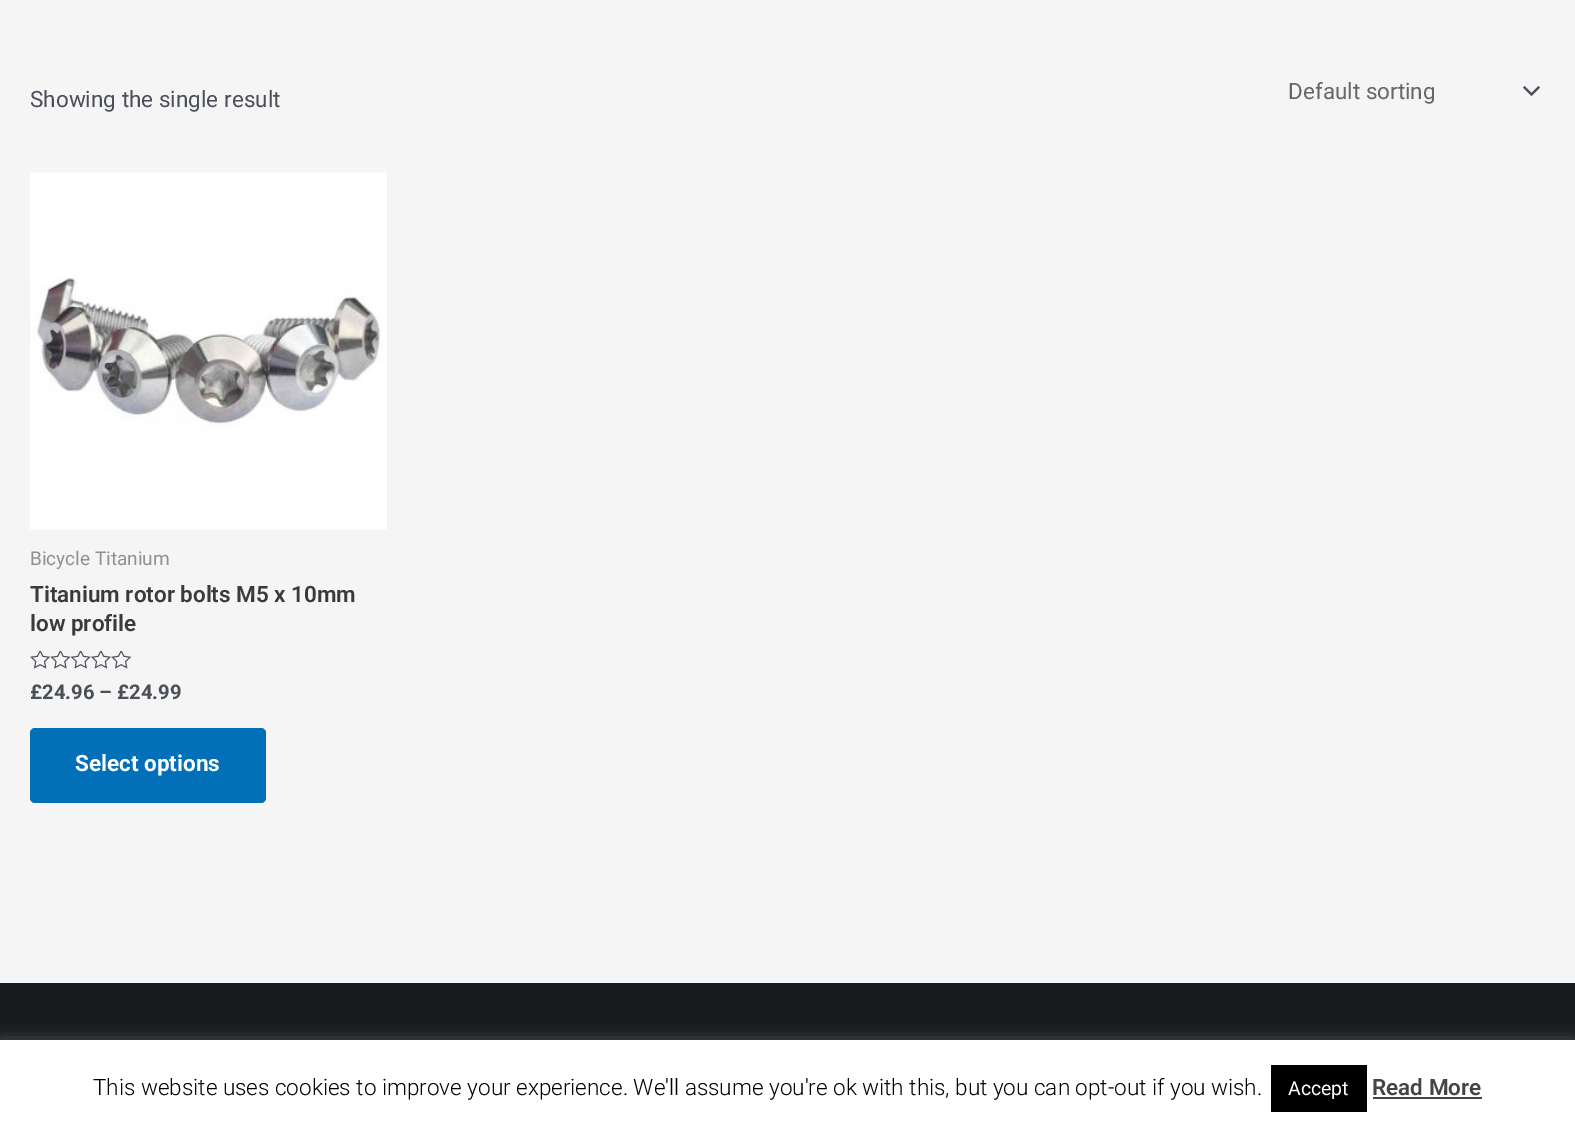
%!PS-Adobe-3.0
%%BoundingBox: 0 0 1575 1129
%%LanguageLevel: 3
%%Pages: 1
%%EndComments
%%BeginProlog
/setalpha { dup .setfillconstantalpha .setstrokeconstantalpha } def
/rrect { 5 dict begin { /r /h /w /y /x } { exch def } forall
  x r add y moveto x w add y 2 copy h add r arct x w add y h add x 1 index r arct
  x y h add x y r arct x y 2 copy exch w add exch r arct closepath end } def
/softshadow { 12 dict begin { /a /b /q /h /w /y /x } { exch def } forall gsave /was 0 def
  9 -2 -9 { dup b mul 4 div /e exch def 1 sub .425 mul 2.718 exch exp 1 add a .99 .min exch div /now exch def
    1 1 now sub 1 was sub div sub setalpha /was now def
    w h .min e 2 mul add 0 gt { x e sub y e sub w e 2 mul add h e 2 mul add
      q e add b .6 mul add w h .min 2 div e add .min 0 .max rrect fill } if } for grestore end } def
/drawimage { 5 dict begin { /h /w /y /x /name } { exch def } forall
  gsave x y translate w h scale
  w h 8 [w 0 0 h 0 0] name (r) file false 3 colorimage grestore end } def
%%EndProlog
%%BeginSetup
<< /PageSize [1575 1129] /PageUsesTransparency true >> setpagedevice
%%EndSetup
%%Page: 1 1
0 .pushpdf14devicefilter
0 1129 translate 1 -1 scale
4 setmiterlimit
0.961 setgray
0 0 1575 1129 rectfill
(images/1.raw) 1523 86 17 11 drawimage
(images/2.raw) 30 172 357 358 drawimage
(images/3.raw) 30 651 102 18 drawimage
0.004 0.439 0.725 setrgbcolor
30 728 236 75 5 rrect fill
0.094 0.106 0.114 setrgbcolor
0 983 1575 57 rectfill
0.675 0.671 0.671 setrgbcolor
0 1038 1575 90 0 7.5 0.3 softshadow
1 setgray
0 1040 1575 89 rectfill
0 setgray
1271 1065 96 47 rectfill
0.267 setgray
1373 1097 109 2 rectfill
/Roboto-Regular [22.5 0 0 -22.5 0 0] selectfont
0.294 0.31 0.345 setrgbcolor
30 107 moveto (Showing the single result) show
0.4 setgray
1288 99 moveto (Default sorting) show
/Roboto-Regular [19 0 0 -19 0 0] selectfont
0.561 0.569 0.592 setrgbcolor
30 565 moveto (Bicycle Titanium) show
/Roboto-SemiBold [22.5 0 0 -22.5 0 0] selectfont
0.227 setgray
30 602 moveto (Titanium rotor bolts M5 x 10mm) show
30 631 moveto (low profile) show
/Roboto-Bold [20.25 0 0 -20.25 0 0] selectfont
0.294 0.31 0.345 setrgbcolor
30 699 moveto (£24.96 – £24.99) show
/Roboto-Bold [22.5 0 0 -22.5 0 0] selectfont
1 setgray
75 771 moveto (Select options) show
/Roboto-Light [22.5 0 0 -22.5 0 0] selectfont
0 setgray
93 1095 moveto (This website uses cookies to improve your experience. We'll assume you're ok with this, but you can opt-out if you wish.) show
/Roboto-Regular [19.5 0 0 -19.5 0 0] selectfont
1 setgray
1288 1095 moveto (Accept) show
/Roboto-SemiBold [22.5 0 0 -22.5 0 0] selectfont
0.267 setgray
1372 1095 moveto (Read More) show
.poppdf14devicefilter showpage
%%EOF
